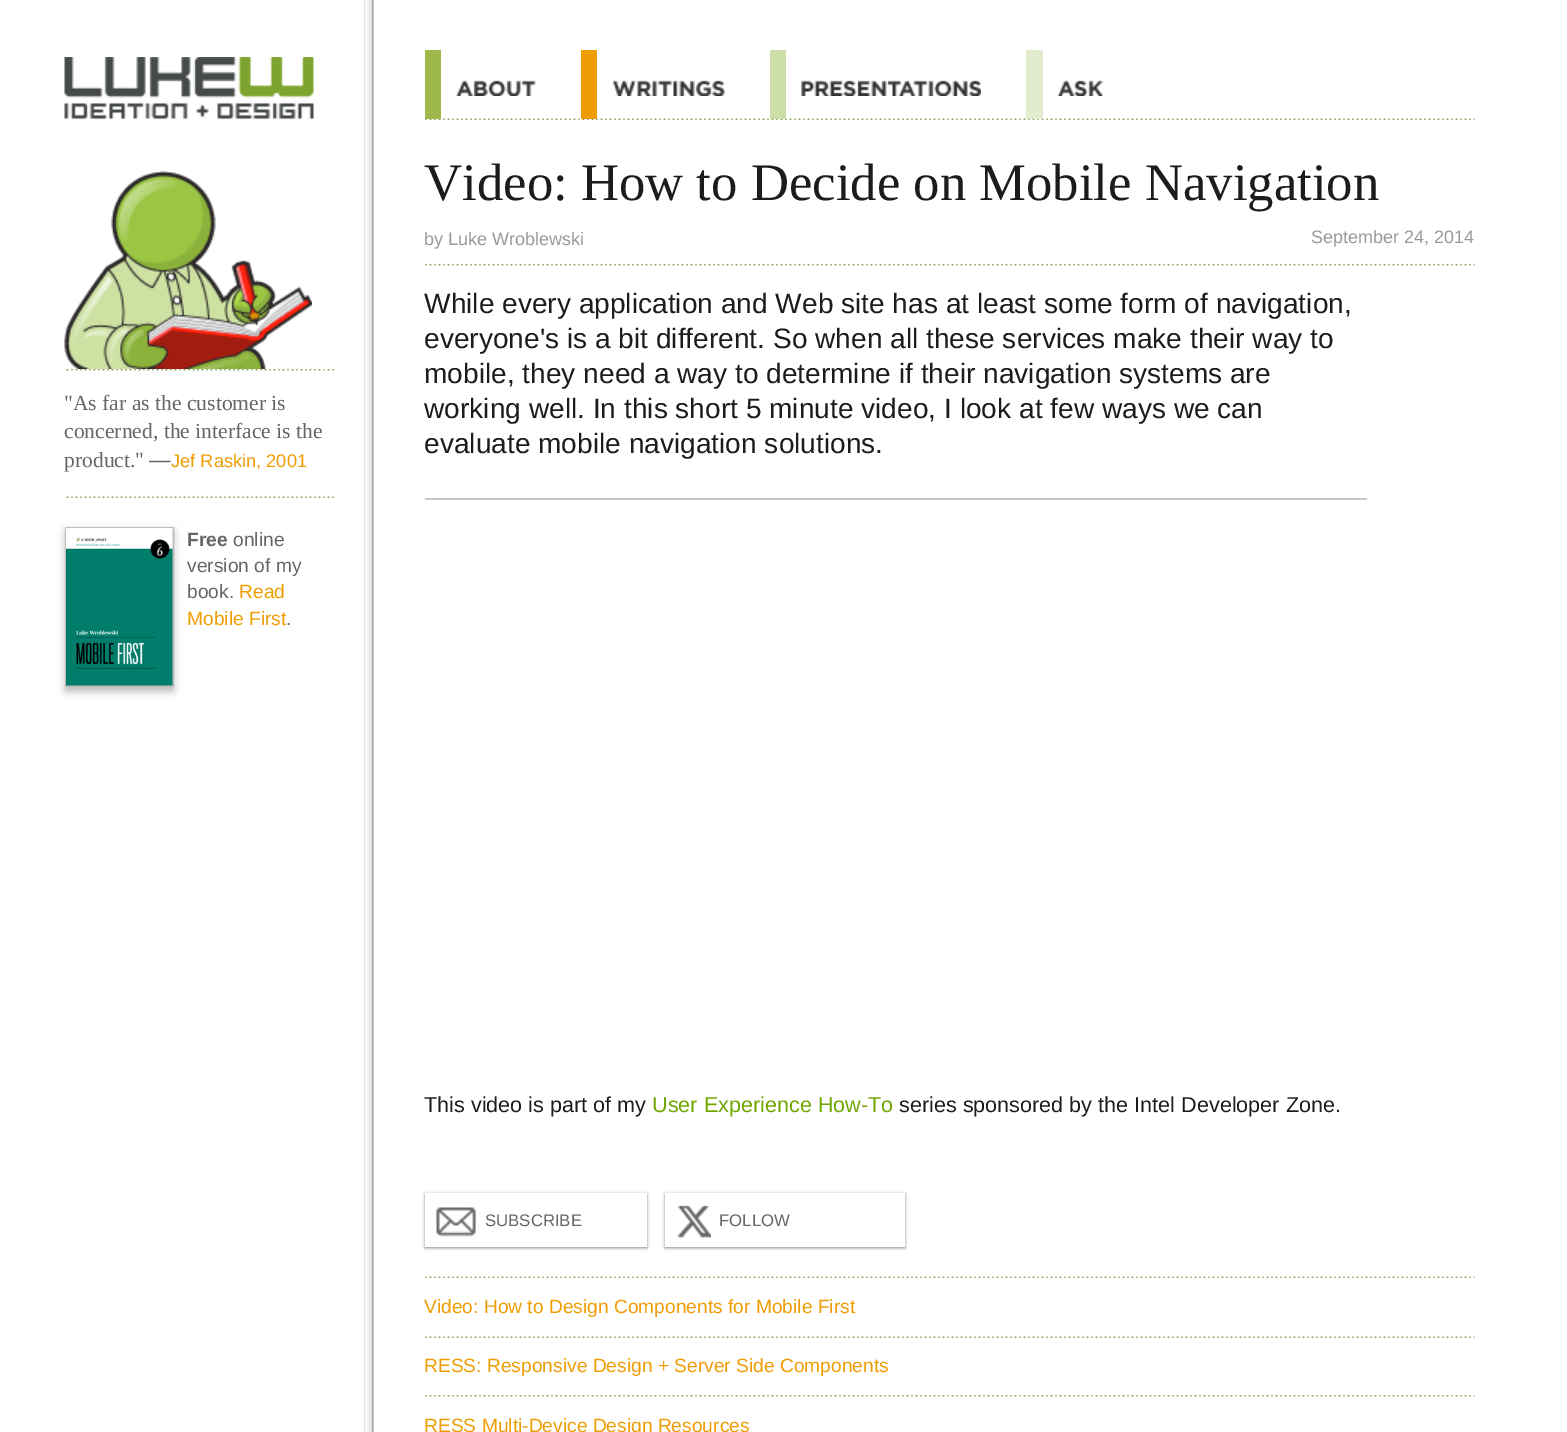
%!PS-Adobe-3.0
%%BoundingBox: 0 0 1567 1432
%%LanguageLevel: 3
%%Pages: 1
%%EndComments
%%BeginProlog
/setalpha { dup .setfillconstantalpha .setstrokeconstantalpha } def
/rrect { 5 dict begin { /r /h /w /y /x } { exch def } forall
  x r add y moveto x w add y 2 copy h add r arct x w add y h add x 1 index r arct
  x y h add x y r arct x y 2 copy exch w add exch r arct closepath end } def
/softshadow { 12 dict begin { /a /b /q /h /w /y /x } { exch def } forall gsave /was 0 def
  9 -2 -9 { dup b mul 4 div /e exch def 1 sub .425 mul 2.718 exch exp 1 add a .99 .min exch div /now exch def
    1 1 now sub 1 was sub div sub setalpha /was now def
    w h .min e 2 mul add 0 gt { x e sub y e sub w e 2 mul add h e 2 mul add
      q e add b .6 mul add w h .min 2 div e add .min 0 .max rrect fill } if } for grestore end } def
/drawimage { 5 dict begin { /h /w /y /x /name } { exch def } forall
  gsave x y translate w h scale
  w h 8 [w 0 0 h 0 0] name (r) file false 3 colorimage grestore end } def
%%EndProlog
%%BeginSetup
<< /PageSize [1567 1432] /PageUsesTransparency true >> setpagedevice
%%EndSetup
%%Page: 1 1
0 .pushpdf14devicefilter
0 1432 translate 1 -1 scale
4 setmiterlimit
1 setgray
0 0 1567 1432 rectfill
(images/1.raw) 425 118 1050 2 drawimage
0.624 0.722 0.298 setrgbcolor
425 50 16 69 rectfill
(images/2.raw) 456 80 80 16 drawimage
0.933 0.616 0.02 setrgbcolor
581 50 16 69 rectfill
(images/3.raw) 612 80 113 16 drawimage
0.804 0.875 0.663 setrgbcolor
770 50 16 69 rectfill
(images/4.raw) 801 80 180 16 drawimage
0.89 0.922 0.808 setrgbcolor
1026 50 17 69 rectfill
(images/5.raw) 1057 80 46 16 drawimage
(images/6.raw) 64 57 250 63 drawimage
(images/7.raw) 64 171 248 198 drawimage
(images/8.raw) 66 369 268 2 drawimage
(images/9.raw) 66 496 268 2 drawimage
0.749 0.733 0.733 setrgbcolor
65 531 109 161 0 4 1 softshadow
0.745 0.737 0.737 setrgbcolor
2 setlinewidth
66 528 107 158 rectstroke
(images/10.raw) 66 528 107 158 drawimage
(images/11.raw) 364 0 11 1432 drawimage
(images/12.raw) 425 264 1050 2 drawimage
0.788 setgray
425 498 942 2 rectfill
0.553 setgray
425 1194 222 54 0 1.5 1 softshadow
1 setgray
425 1193 222 54 rectfill
(images/13.raw) 436 1207 40 30 drawimage
0.553 setgray
665 1194 240 54 0 1.5 1 softshadow
1 setgray
665 1193 240 54 rectfill
(images/14.raw) 677 1205 34 33 drawimage
(images/1.raw) 425 1276 1050 2 drawimage
(images/1.raw) 425 1336 1050 2 drawimage
(images/12.raw) 425 1395 1050 2 drawimage
/LiberationSerif-Regular [21.6 0 0 -21.6 0 0] selectfont
0.4 setgray
64 410 moveto ("As far as the customer is) show
64 438 moveto (concerned, the interface is the) show
64 467 moveto (product.") show
/LiberationSans-Regular [21.6 0 0 -21.6 0 0] selectfont
149 467 moveto (—) show
/LiberationSans-Regular [18.25 0 0 -18.25 0 0] selectfont
0.933 0.616 0.02 setrgbcolor
171 467 moveto (Jef Raskin, 2001) show
/LiberationSans-Bold [19.2 0 0 -19.2 0 0] selectfont
0.4 setgray
187 546 moveto (Free) show
/LiberationSans-Regular [19.2 0 0 -19.2 0 0] selectfont
233 546 moveto (online) show
187 572 moveto (version of my) show
187 598 moveto (book.) show
0.933 0.616 0.02 setrgbcolor
239 598 moveto (Read) show
187 625 moveto (Mobile First) show
0.4 setgray
286 625 moveto (.) show
/LiberationSerif-Regular [52.75 0 0 -52.75 0 0] selectfont
0.11 setgray
424 200 moveto (Video: How to Decide on Mobile Navigation) show
/LiberationSans-Regular [18 0 0 -18 0 0] selectfont
0.6 setgray
424 245 moveto (by Luke Wroblewski) show
1311 243 moveto (September 24, 2014) show
/LiberationSans-Regular [28.1 0 0 -28.1 0 0] selectfont
0.11 setgray
424 313 moveto (While every application and Web site has at least some form of navigation,) show
424 348 moveto (everyone's is a bit different. So when all these services make their way to) show
424 383 moveto (mobile, they need a way to determine if their navigation systems are) show
424 418 moveto (working well. In this short 5 minute video, I look at few ways we can) show
424 453 moveto (evaluate mobile navigation solutions.) show
/LiberationSans-Regular [21.6 0 0 -21.6 0 0] selectfont
424 1112 moveto (This video is part of my) show
0.435 0.651 0.004 setrgbcolor
652 1112 moveto (User Experience How-To) show
0.11 setgray
899 1112 moveto (series sponsored by the Intel Developer Zone.) show
/LiberationSans-Regular [16.75 0 0 -16.75 0 0] selectfont
0.4 setgray
485 1226 moveto (SUBSCRIBE) show
719 1226 moveto (FOLLOW) show
/LiberationSans-Regular [19.2 0 0 -19.2 0 0] selectfont
0.933 0.616 0.02 setrgbcolor
424 1313 moveto (Video: How to Design Components for Mobile First) show
424 1372 moveto (RESS: Responsive Design + Server Side Components) show
424 1432 moveto (RESS Multi-Device Design Resources) show
.poppdf14devicefilter showpage
%%EOF
